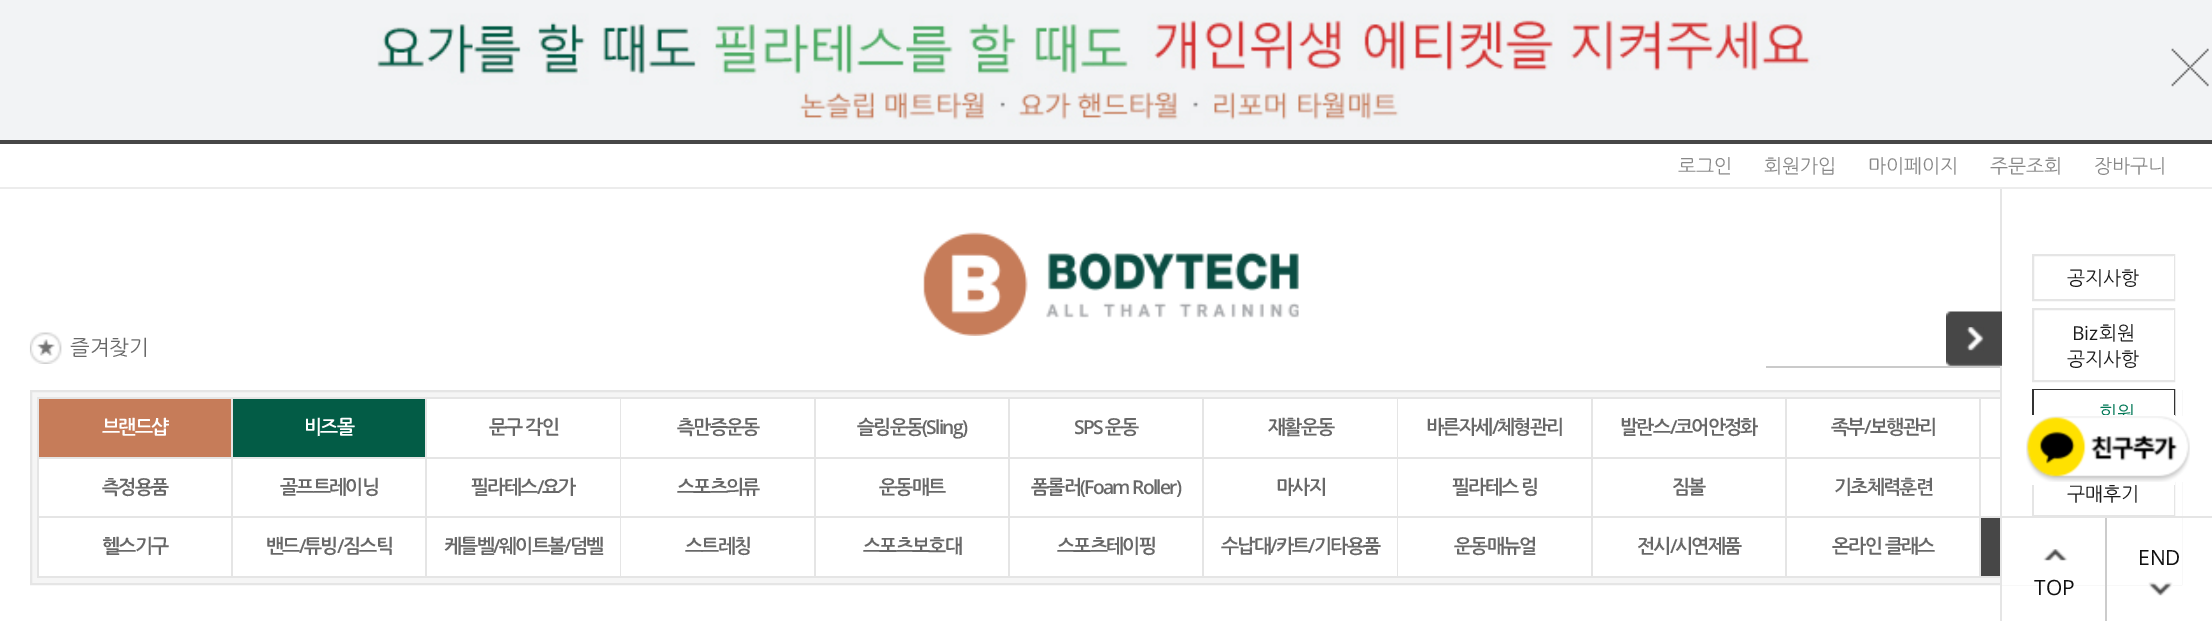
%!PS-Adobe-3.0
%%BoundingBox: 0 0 2212 621
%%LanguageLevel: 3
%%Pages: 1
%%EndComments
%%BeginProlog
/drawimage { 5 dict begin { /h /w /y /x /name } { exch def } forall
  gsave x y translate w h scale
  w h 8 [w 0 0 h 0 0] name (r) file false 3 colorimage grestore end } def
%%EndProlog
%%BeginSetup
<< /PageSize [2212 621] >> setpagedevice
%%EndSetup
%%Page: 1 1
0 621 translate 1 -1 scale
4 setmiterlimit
1 setgray
0 0 2212 621 rectfill
(images/1.raw) 0 0 2212 140 drawimage
(images/2.raw) 2171 48 38 39 drawimage
0.278 setgray
0 140 2212 4 rectfill
0.925 setgray
0 187 2212 2 rectfill
(images/3.raw) 923 232 376 104 drawimage
(images/4.raw) 29 332 33 32 drawimage
0.792 setgray
1766 366 234 2 rectfill
0.961 setgray
32 392 1968 191 rectfill
0.898 setgray
2 setlinewidth
31 391 2150 193 rectstroke
37 397 1963 2 rectfill
37 397 2 181 rectfill
0.776 0.486 0.349 setrgbcolor
39 399 192 58 rectfill
0.898 setgray
231 399 2 179 rectfill
39 457 194 2 rectfill
0.012 0.361 0.275 setrgbcolor
233 399 192 58 rectfill
0.898 setgray
425 399 2 179 rectfill
233 457 194 2 rectfill
1 setgray
427 399 193 58 rectfill
0.898 setgray
620 399 1 179 rectfill
427 457 194 2 rectfill
1 setgray
621 399 193 58 rectfill
0.898 setgray
814 399 2 179 rectfill
621 457 195 2 rectfill
1 setgray
816 399 192 58 rectfill
0.898 setgray
1008 399 2 179 rectfill
816 457 194 2 rectfill
1 setgray
1010 399 192 58 rectfill
0.898 setgray
1202 399 2 179 rectfill
1010 457 194 2 rectfill
1 setgray
1204 399 193 58 rectfill
0.898 setgray
1397 399 1 179 rectfill
1204 457 194 2 rectfill
1 setgray
1398 399 193 58 rectfill
0.898 setgray
1591 399 2 179 rectfill
1398 457 195 2 rectfill
1 setgray
1593 399 192 58 rectfill
0.898 setgray
1785 399 2 179 rectfill
1593 457 194 2 rectfill
1 setgray
1787 399 192 58 rectfill
0.898 setgray
1979 399 2 179 rectfill
1787 457 213 2 rectfill
1 setgray
1981 399 19 58 rectfill
39 459 192 57 rectfill
0.898 setgray
39 516 1961 2 rectfill
1 setgray
233 459 192 57 rectfill
427 459 193 57 rectfill
621 459 193 57 rectfill
816 459 192 57 rectfill
1010 459 192 57 rectfill
1204 459 193 57 rectfill
1398 459 193 57 rectfill
1593 459 192 57 rectfill
1787 459 192 57 rectfill
1981 459 19 57 rectfill
39 518 192 58 rectfill
0.898 setgray
39 576 1961 2 rectfill
1 setgray
233 518 192 58 rectfill
427 518 193 58 rectfill
621 518 193 58 rectfill
816 518 192 58 rectfill
1010 518 192 58 rectfill
1204 518 193 58 rectfill
1398 518 193 58 rectfill
1593 518 192 58 rectfill
1787 518 192 58 rectfill
0.278 setgray
1981 518 19 58 rectfill
1 setgray
2002 390 180 126 rectfill
0.898 setgray
2000 189 2 432 rectfill
(images/5.raw) 1946 311 56 55 drawimage
(images/6.raw) 1966 327 18 24 drawimage
2033 255 141 45 rectstroke
1 setgray
2173 256 1 43 rectfill
0.898 setgray
2033 309 141 72 rectstroke
1 setgray
2173 310 1 70 rectfill
0.2 setgray
2033 390 141 71 rectstroke
1 setgray
2034 390 140 25 rectfill
0.898 setgray
2033 470 141 45 rectstroke
1 setgray
2034 485 140 30 rectfill
0.898 setgray
2002 516 210 2 rectfill
1 setgray
2107 518 75 67 rectfill
0.8 setgray
2105 518 2 103 rectfill
(images/8.raw) 2148 582 25 14 drawimage
1 setgray
2002 583 103 2 rectfill
(images/9.raw) 2043 549 25 12 drawimage
/NanumGothic-Regular [19.25 0 0 -19.25 0 0] selectfont
0.533 setgray
1678 173 moveto (로그인) show
1764 173 moveto (회원가입) show
1868 173 moveto (마이페이지) show
1990 173 moveto (주문조회) show
2094 173 moveto (장바구니) show
/NanumGothic-Regular [21 0 0 -21 0 0] selectfont
0.408 setgray
70 355 moveto (즐겨찾기) show
/NanumGothic-Bold [19.25 0 0 -19.25 0 0] selectfont
1 setgray
102 434 moveto -1.75 0 (브랜드샵) ashow
304 434 moveto -1.75 0 (비즈몰) ashow
0.408 setgray
489 434 moveto -1.75 0 (문구 각인) ashow
677 434 moveto -1.75 0 (측만증운동) ashow
857 434 moveto -1.75 0 (슬링운동) ashow
/OpenSans-SemiBold [19.25 0 0 -19.25 0 0] selectfont
922 434 moveto -1.75 0 (\(Sling\)) ashow
1074 434 moveto -1.75 0 (SPS) ashow
/NanumGothic-Bold [19.25 0 0 -19.25 0 0] selectfont
1105 434 moveto -1.75 0 (운동) ashow
1268 434 moveto -1.75 0 (재활운동) ashow
1426 434 moveto -1.75 0 (바른자세) ashow
/OpenSans-SemiBold [19.25 0 0 -19.25 0 0] selectfont
1492 434 moveto -1.75 0 (/) ashow
/NanumGothic-Bold [19.25 0 0 -19.25 0 0] selectfont
1497 434 moveto -1.75 0 (체형관리) ashow
1620 434 moveto -1.75 0 (발란스) ashow
/OpenSans-SemiBold [19.25 0 0 -19.25 0 0] selectfont
1670 434 moveto -1.75 0 (/) ashow
/NanumGothic-Bold [19.25 0 0 -19.25 0 0] selectfont
1675 434 moveto -1.75 0 (코어안정화) ashow
1831 434 moveto -1.75 0 (족부) ashow
/OpenSans-SemiBold [19.25 0 0 -19.25 0 0] selectfont
1864 434 moveto -1.75 0 (/) ashow
/NanumGothic-Bold [19.25 0 0 -19.25 0 0] selectfont
1870 434 moveto -1.75 0 (보행관리) ashow
102 494 moveto -1.75 0 (측정용품) ashow
280 494 moveto -1.75 0 (골프트레이닝) ashow
471 494 moveto -1.75 0 (필라테스) ashow
/OpenSans-SemiBold [19.25 0 0 -19.25 0 0] selectfont
537 494 moveto -1.75 0 (/) ashow
/NanumGothic-Bold [19.25 0 0 -19.25 0 0] selectfont
542 494 moveto -1.75 0 (요가) ashow
677 494 moveto -1.75 0 (스포츠의류) ashow
879 494 moveto -1.75 0 (운동매트) ashow
1031 494 moveto -1.75 0 (폼롤러) ashow
/OpenSans-SemiBold [19.25 0 0 -19.25 0 0] selectfont
1080 494 moveto -1.75 0 (\(Foam Roller\)) ashow
/NanumGothic-Bold [19.25 0 0 -19.25 0 0] selectfont
1276 494 moveto -1.75 0 (마사지) ashow
1452 494 moveto -1.75 0 (필라테스 링) ashow
1672 494 moveto -1.75 0 (짐볼) ashow
1834 494 moveto -1.75 0 (기초체력훈련) ashow
102 553 moveto -1.75 0 (헬스기구) ashow
266 553 moveto -1.75 0 (밴드) ashow
/OpenSans-SemiBold [19.25 0 0 -19.25 0 0] selectfont
299 553 moveto -1.75 0 (/) ashow
/NanumGothic-Bold [19.25 0 0 -19.25 0 0] selectfont
304 553 moveto -1.75 0 (튜빙) ashow
/OpenSans-SemiBold [19.25 0 0 -19.25 0 0] selectfont
337 553 moveto -1.75 0 (/) ashow
/NanumGothic-Bold [19.25 0 0 -19.25 0 0] selectfont
343 553 moveto -1.75 0 (짐스틱) ashow
444 553 moveto -1.75 0 (케틀벨) ashow
/OpenSans-SemiBold [19.25 0 0 -19.25 0 0] selectfont
493 553 moveto -1.75 0 (/) ashow
/NanumGothic-Bold [19.25 0 0 -19.25 0 0] selectfont
499 553 moveto -1.75 0 (웨이트볼) ashow
/OpenSans-SemiBold [19.25 0 0 -19.25 0 0] selectfont
564 553 moveto -1.75 0 (/) ashow
/NanumGothic-Bold [19.25 0 0 -19.25 0 0] selectfont
570 553 moveto -1.75 0 (덤벨) ashow
685 553 moveto -1.75 0 (스트레칭) ashow
863 553 moveto -1.75 0 (스포츠보호대) ashow
1057 553 moveto -1.75 0 (스포츠테이핑) ashow
1221 553 moveto -1.75 0 (수납대) ashow
/OpenSans-SemiBold [19.25 0 0 -19.25 0 0] selectfont
1270 553 moveto -1.75 0 (/) ashow
/NanumGothic-Bold [19.25 0 0 -19.25 0 0] selectfont
1276 553 moveto -1.75 0 (카트) ashow
/OpenSans-SemiBold [19.25 0 0 -19.25 0 0] selectfont
1308 553 moveto -1.75 0 (/) ashow
/NanumGothic-Bold [19.25 0 0 -19.25 0 0] selectfont
1314 553 moveto -1.75 0 (기타용품) ashow
1454 553 moveto -1.75 0 (운동매뉴얼) ashow
1637 553 moveto -1.75 0 (전시) ashow
/OpenSans-SemiBold [19.25 0 0 -19.25 0 0] selectfont
1670 553 moveto -1.75 0 (/) ashow
/NanumGothic-Bold [19.25 0 0 -19.25 0 0] selectfont
1675 553 moveto -1.75 0 (시연제품) ashow
1832 553 moveto -1.75 0 (온라인 클래스) ashow
/NanumGothic-Regular [19.25 0 0 -19.25 0 0] selectfont
0.106 setgray
2067 285 moveto (공지사항) show
/OpenSans-Regular [19.25 0 0 -19.25 0 0] selectfont
2072 340 moveto (Biz) show
/NanumGothic-Regular [19.25 0 0 -19.25 0 0] selectfont
2099 340 moveto (회원) show
2067 366 moveto (공지사항) show
0 0.467 0.333 setrgbcolor
2099 420 moveto (회원) show
0.106 setgray
2067 501 moveto (구매후기) show
1 setgray
2032 415 143 70 rectfill
(images/7.raw) 2026 416 164 66 drawimage
/OpenSans-Regular [21 0 0 -21 0 0] selectfont
0.067 setgray
2138 565 moveto (END) show
2034 595 moveto (TOP) show
showpage
%%EOF
